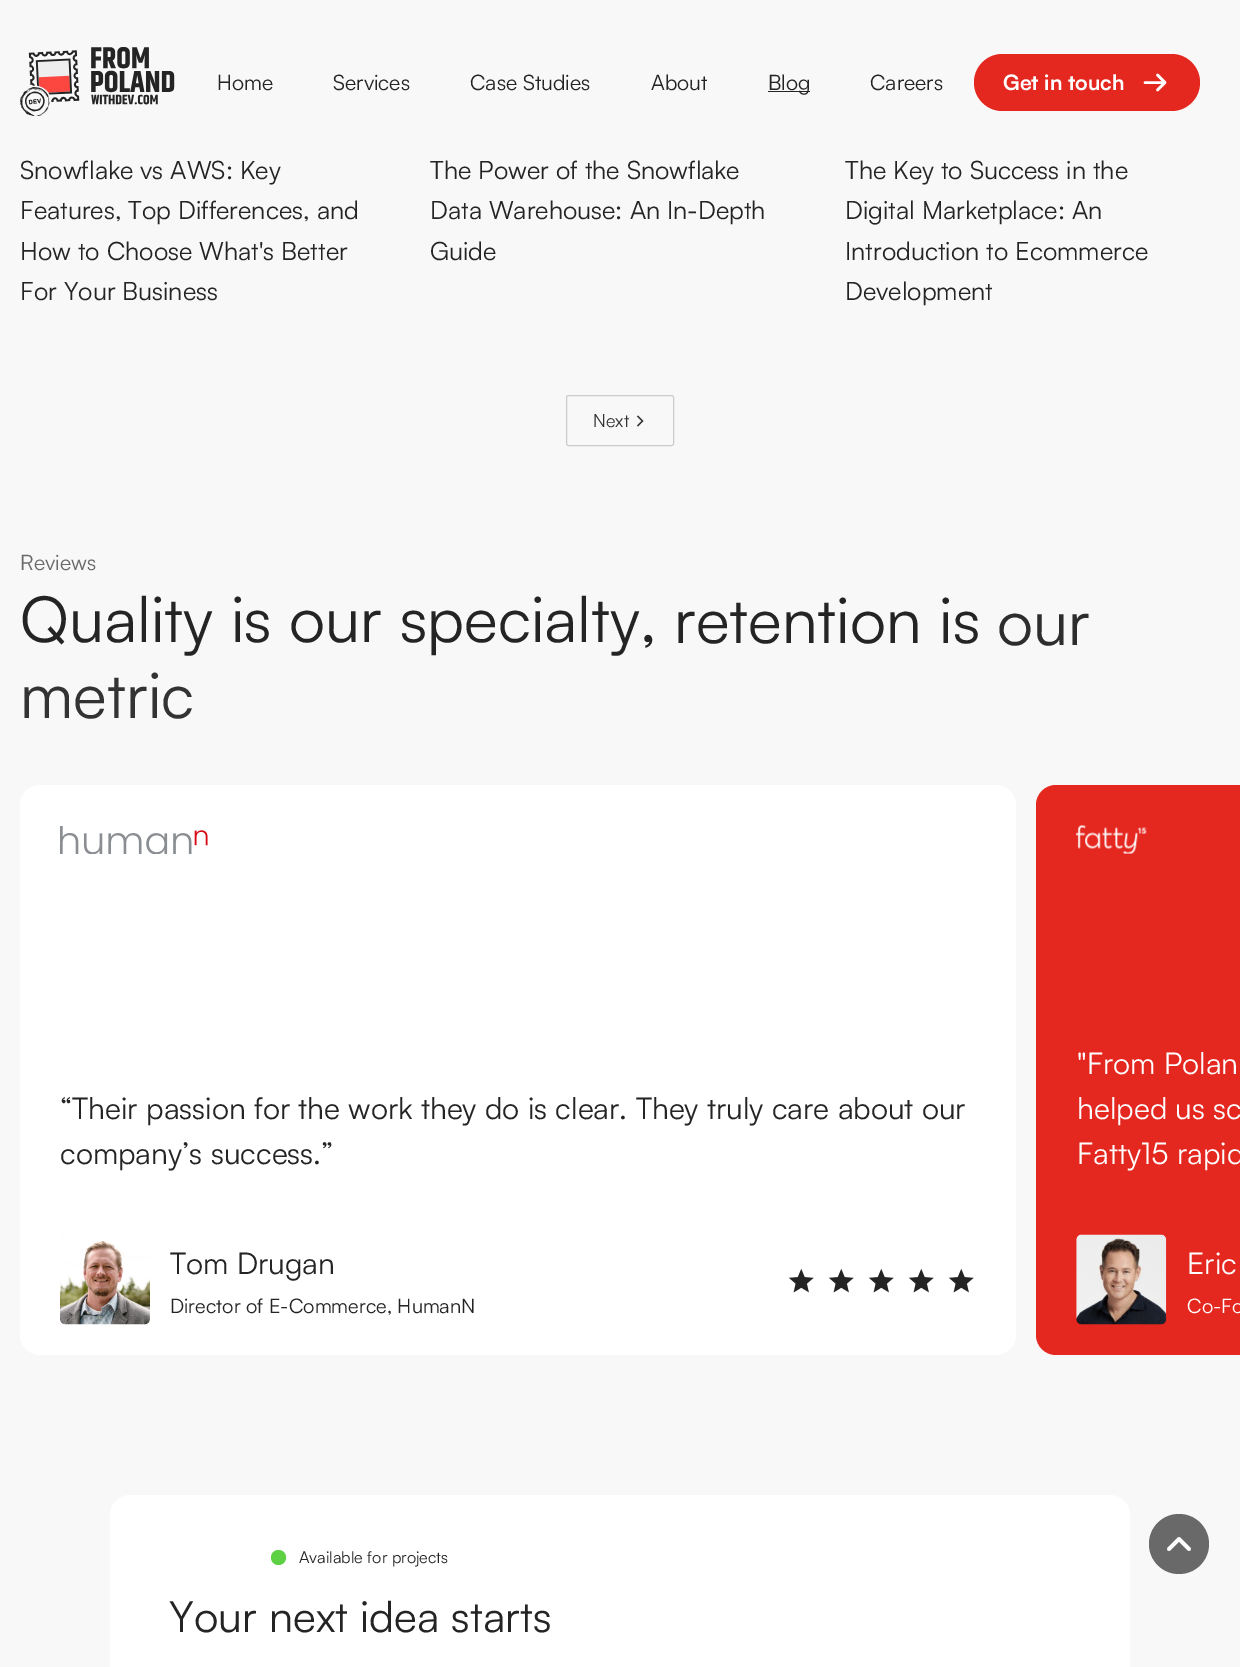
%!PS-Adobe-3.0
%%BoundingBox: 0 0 1240 1667
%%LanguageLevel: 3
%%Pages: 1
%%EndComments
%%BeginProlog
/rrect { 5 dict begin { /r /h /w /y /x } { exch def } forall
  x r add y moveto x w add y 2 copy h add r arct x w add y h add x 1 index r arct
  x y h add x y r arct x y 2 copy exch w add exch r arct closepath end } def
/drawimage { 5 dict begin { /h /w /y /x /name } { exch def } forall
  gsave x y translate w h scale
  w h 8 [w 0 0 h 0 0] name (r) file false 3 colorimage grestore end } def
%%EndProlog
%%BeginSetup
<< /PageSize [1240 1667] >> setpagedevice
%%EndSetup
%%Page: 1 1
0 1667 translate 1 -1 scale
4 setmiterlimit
0.973 setgray
0 0 1240 1667 rectfill
(images/1.raw) 20 47 155 69 drawimage
0.141 setgray
768 91 42 1 rectfill
0.894 0.153 0.122 setrgbcolor
974 54 226 57 28.5 rrect fill
1 setgray
2.5 setlinewidth
1 setlinecap
1 setlinejoin
newpath 1145 82.5 moveto 1165 82.5 lineto 1165 82.5 moveto 1157.5 75 lineto 1165 82.5 moveto 1157.5 90 lineto stroke
0.8 setgray
1 setlinewidth
0 setlinecap
0 setlinejoin
566.5 395.5 107 50 2 rrect stroke
0.2 setgray
1.2 setlinewidth
newpath 637.5 416 moveto 642.5 421 lineto 637.5 426 lineto stroke
1 setgray
20 785 996 570 20 rrect fill
(images/2.raw) 60 826 148 28 drawimage
(images/3.raw) 60 1236 90 89 drawimage
(images/4.raw) 788 1268 26 25 drawimage
(images/4.raw) 828 1268 26 25 drawimage
(images/4.raw) 868 1268 26 25 drawimage
(images/4.raw) 908 1268 26 25 drawimage
(images/4.raw) 948 1268 26 25 drawimage
0.894 0.153 0.122 setrgbcolor
newpath 1056 785 moveto 1240 785 lineto 1240 1355 lineto 1056 1355 lineto 1045 1355 1036 1346 1036 1335 curveto 1036 805 lineto 1036 794 1045 785 1056 785 curveto closepath fill
(images/5.raw) 1076 825 71 29 drawimage
(images/6.raw) 1076 1234 91 91 drawimage
0.412 setgray
newpath 1179 1544 30 0 360 arc closepath fill
1 setgray
3.8 setlinewidth
1 setlinecap
1 setlinejoin
newpath 1189 1549 moveto 1179 1539 lineto 1169 1549 lineto stroke
110 1495 1020 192 20 rrect fill
0.365 0.82 0.263 setrgbcolor
newpath 278.5 1557.5 7.5 0 360 arc closepath fill
/Satoshi-Regular [21.25 0 0 -21.25 0 0] selectfont
0.141 setgray
217 90 moveto (Home) show
333 90 moveto (Services) show
470 90 moveto (Case Studies) show
651 90 moveto (About) show
768 90 moveto (Blog) show
870 90 moveto (Careers) show
/Satoshi-Bold [21.25 0 0 -21.25 0 0] selectfont
1 setgray
1003 90 moveto (Get in touch) show
/Satoshi-Regular [25.25 0 0 -25.25 0 0] selectfont
0.141 setgray
20 179 moveto (Snowflake vs AWS: Key) show
20 219 moveto (Features, Top Differences, and) show
20 260 moveto (How to Choose What's Better) show
20 300 moveto (For Your Business) show
430 179 moveto (The Power of the Snowflake) show
430 219 moveto (Data Warehouse: An In-Depth) show
430 260 moveto (Guide) show
845 179 moveto (The Key to Success in the) show
845 219 moveto (Digital Marketplace: An) show
845 260 moveto (Introduction to Ecommerce) show
845 300 moveto (Development) show
/Satoshi-Regular [18 0 0 -18 0 0] selectfont
0.2 setgray
593 427 moveto (Next) show
/Satoshi-Regular [21.25 0 0 -21.25 0 0] selectfont
0.412 setgray
20 570 moveto (Reviews) show
/Satoshi-Regular [63.4 0 0 -63.4 0 0] selectfont
0.141 setgray
20 642 moveto (Quality is our specialty,) show
674 643 moveto (retention) show
939 643 moveto (is) show
0.176 setgray
997 645 moveto (our) show
0.2 setgray
20 718 moveto (metric) show
/Satoshi-Regular [30 0 0 -30 0 0] selectfont
0.141 setgray
60 1119 moveto (“Their passion for the work they do is clear. They truly care about our) show
60 1164 moveto (company’s success.”) show
170 1274 moveto (Tom Drugan) show
/Satoshi-Regular [20 0 0 -20 0 0] selectfont
170 1313 moveto (Director of E-Commerce, HumanN) show
/Satoshi-Regular [30 0 0 -30 0 0] selectfont
1 setgray
1077 1074 moveto ("From Polan) show
1077 1119 moveto (helped us sc) show
1077 1164 moveto (Fatty15 rapid) show
1187 1274 moveto (Eric) show
/Satoshi-Regular [20 0 0 -20 0 0] selectfont
1187 1313 moveto (Co-Fo) show
/Satoshi-Regular [16.25 0 0 -16.25 0 0] selectfont
0.141 setgray
299 1563 moveto (Available for projects) show
/Satoshi-Regular [43 0 0 -43 0 0] selectfont
169 1632 moveto (Your next idea starts) show
showpage
%%EOF
